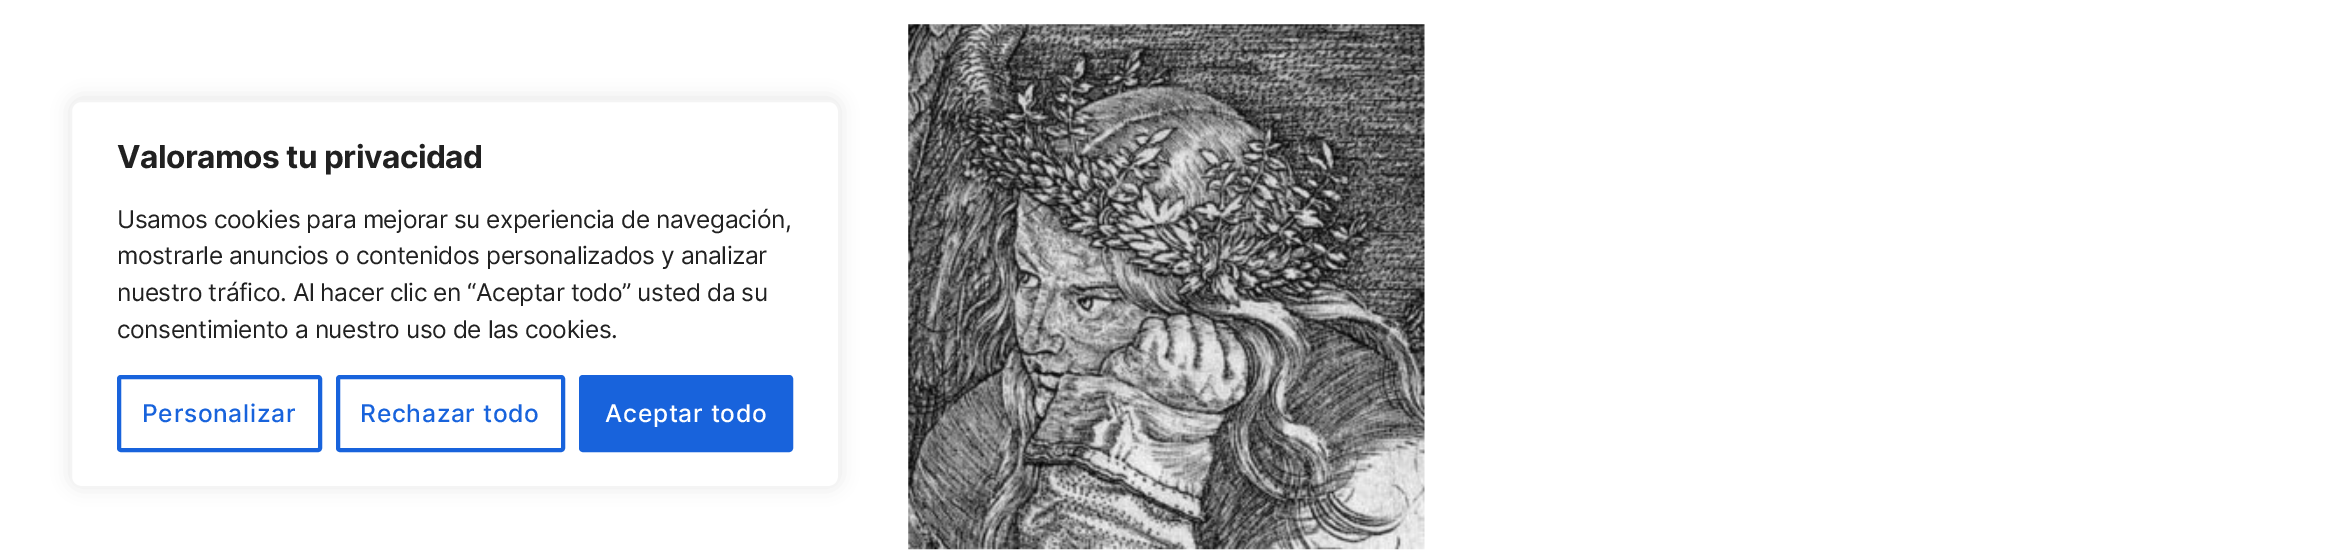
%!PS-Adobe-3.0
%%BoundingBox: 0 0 2332 557
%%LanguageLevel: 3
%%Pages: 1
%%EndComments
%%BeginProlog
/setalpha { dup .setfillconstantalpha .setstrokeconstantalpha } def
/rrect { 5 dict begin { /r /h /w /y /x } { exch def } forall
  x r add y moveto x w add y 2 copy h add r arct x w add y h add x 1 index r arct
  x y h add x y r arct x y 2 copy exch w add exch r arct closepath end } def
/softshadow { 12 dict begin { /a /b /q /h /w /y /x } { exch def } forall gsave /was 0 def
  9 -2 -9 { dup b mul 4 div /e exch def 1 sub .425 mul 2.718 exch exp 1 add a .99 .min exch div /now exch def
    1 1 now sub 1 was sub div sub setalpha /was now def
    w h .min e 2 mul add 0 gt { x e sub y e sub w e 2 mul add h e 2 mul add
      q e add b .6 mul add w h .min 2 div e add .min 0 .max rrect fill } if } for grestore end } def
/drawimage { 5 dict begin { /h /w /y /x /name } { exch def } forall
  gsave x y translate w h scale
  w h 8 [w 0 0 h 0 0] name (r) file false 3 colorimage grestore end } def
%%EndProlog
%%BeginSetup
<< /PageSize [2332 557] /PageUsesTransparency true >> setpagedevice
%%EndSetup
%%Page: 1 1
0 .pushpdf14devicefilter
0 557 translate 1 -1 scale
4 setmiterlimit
1 setgray
0 0 2332 557 rectfill
0.675 0.671 0.671 setrgbcolor
70 98 770 389 11 9 0.3 softshadow
1 setgray
71 101 768 386 10 rrect gsave fill grestore
0.957 setgray
2 setlinewidth
stroke
0.094 0.388 0.863 setrgbcolor
4 setlinewidth
119 377 201 73 2 rrect stroke
338 377 225 73 2 rrect stroke
581 377 210 73 2 rrect gsave fill grestore
stroke
(images/1.raw) 908 24 517 526 drawimage
/Inter-Bold [31.5 0 0 -31.5 0 0] selectfont
0.129 setgray
117 168 moveto -0.47 0 (Valoramos tu privacidad) ashow
/Inter-Regular [24.5 0 0 -24.5 0 0] selectfont
117 228 moveto -0.47 0 (Usamos cookies para mejorar su experiencia de navegación,) ashow
117 264 moveto -0.47 0 (mostrarle anuncios o contenidos personalizados y analizar) ashow
117 301 moveto -0.47 0 (nuestro tráfico. Al hacer clic en “Aceptar todo” usted da su) ashow
117 338 moveto -0.47 0 (consentimiento a nuestro uso de las cookies.) ashow
/Inter-Medium [24.5 0 0 -24.5 0 0] selectfont
0.094 0.388 0.863 setrgbcolor
142 422 moveto 0.75 0 (Personalizar) ashow
360 422 moveto 0.75 0 (Rechazar todo) ashow
1 setgray
605 422 moveto 0.75 0 (Aceptar todo) ashow
.poppdf14devicefilter showpage
%%EOF
